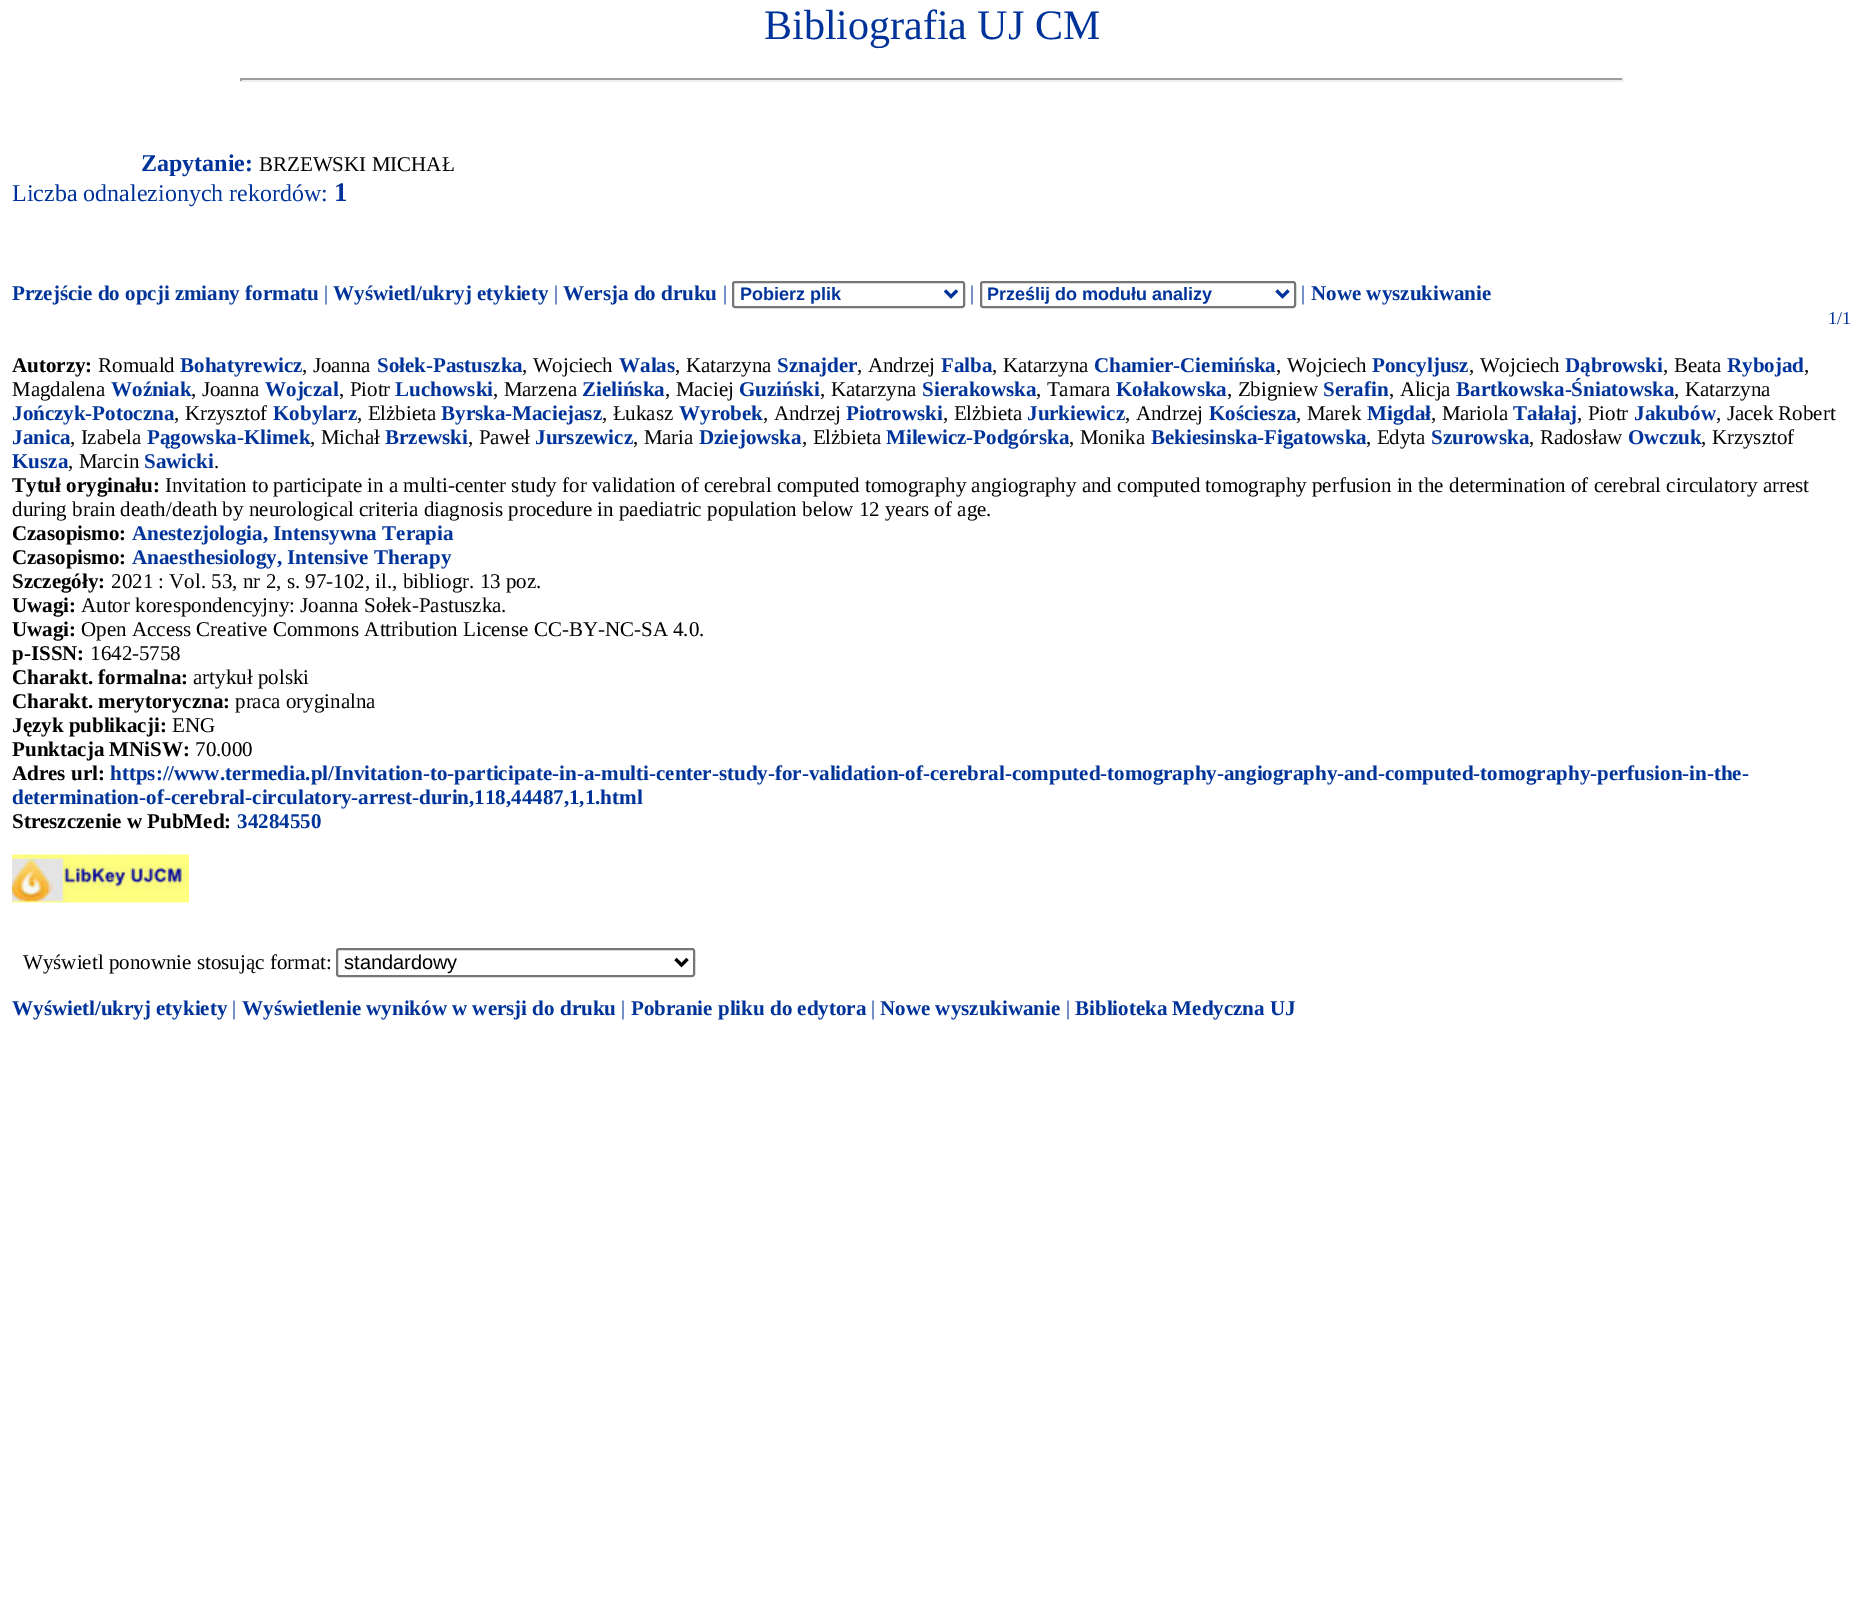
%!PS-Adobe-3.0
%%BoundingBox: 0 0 1862 1608
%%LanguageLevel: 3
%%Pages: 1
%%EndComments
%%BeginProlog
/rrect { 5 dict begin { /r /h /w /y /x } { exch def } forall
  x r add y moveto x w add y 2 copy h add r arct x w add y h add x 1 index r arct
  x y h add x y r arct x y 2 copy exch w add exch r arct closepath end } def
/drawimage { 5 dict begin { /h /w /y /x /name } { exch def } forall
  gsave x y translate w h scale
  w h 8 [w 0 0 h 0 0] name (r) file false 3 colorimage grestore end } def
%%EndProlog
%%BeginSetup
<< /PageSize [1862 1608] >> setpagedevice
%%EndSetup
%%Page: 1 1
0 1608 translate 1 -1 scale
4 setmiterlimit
1 setgray
0 0 1862 1608 rectfill
0.624 setgray
240 78 1383 2 rectfill
0.933 setgray
1622 78 2 3 rectfill
240 80 1383 2 rectfill
0.624 setgray
240 78 2 3 rectfill
0.463 setgray
2 setlinewidth
733 282 231 25 2 rrect stroke
0 0.2 0.6 setrgbcolor
3 setlinewidth
newpath 945 290.5 moveto 951 296.5 lineto 957 290.5 lineto stroke
0.463 setgray
2 setlinewidth
981 282 314 25 2 rrect stroke
0 0.2 0.6 setrgbcolor
3 setlinewidth
newpath 1276.5 290.5 moveto 1282.5 296.5 lineto 1288.5 290.5 lineto stroke
(images/1.raw) 12 854 177 49 drawimage
0.463 setgray
2 setlinewidth
337 949 357 27 2 rrect stroke
0 setgray
3 setlinewidth
newpath 675.5 959 moveto 681.5 965 lineto 687.5 959 lineto stroke
/LiberationSerif-Regular [42 0 0 -42 0 0] selectfont
0 0.2 0.6 setrgbcolor
764 39 moveto (Bibliografia UJ CM) show
/LiberationSerif-Bold [24 0 0 -24 0 0] selectfont
141 171 moveto (Zapytanie:) show
/LiberationSerif-Regular [21 0 0 -21 0 0] selectfont
0 setgray
259 171 moveto (BRZEWSKI MICHAŁ) show
/LiberationSerif-Regular [24 0 0 -24 0 0] selectfont
0 0.2 0.6 setrgbcolor
12 201 moveto (Liczba odnalezionych rekordów:) show
/LiberationSerif-Bold [27 0 0 -27 0 0] selectfont
334 201 moveto (1) show
/LiberationSerif-Bold [21 0 0 -21 0 0] selectfont
12 300 moveto (Przejście do opcji zmiany formatu) show
/LiberationSerif-Regular [21 0 0 -21 0 0] selectfont
324 300 moveto (|) show
/LiberationSerif-Bold [21 0 0 -21 0 0] selectfont
333 300 moveto (Wyświetl/ukryj etykiety) show
/LiberationSerif-Regular [21 0 0 -21 0 0] selectfont
554 300 moveto (|) show
/LiberationSerif-Bold [21 0 0 -21 0 0] selectfont
563 300 moveto (Wersja do druku) show
/LiberationSerif-Regular [21 0 0 -21 0 0] selectfont
723 300 moveto (|) show
/LiberationSans-Bold [18 0 0 -18 0 0] selectfont
740 300 moveto (Pobierz plik) show
/LiberationSerif-Regular [21 0 0 -21 0 0] selectfont
970 300 moveto (|) show
/LiberationSans-Bold [18 0 0 -18 0 0] selectfont
987 300 moveto (Prześlij do modułu analizy) show
/LiberationSerif-Regular [21 0 0 -21 0 0] selectfont
1301 300 moveto (|) show
/LiberationSerif-Bold [21 0 0 -21 0 0] selectfont
1311 300 moveto (Nowe wyszukiwanie) show
/LiberationSerif-Regular [18 0 0 -18 0 0] selectfont
1828 324 moveto (1/1) show
/LiberationSerif-Bold [21 0 0 -21 0 0] selectfont
0 setgray
12 372 moveto (Autorzy:) show
/LiberationSerif-Regular [21 0 0 -21 0 0] selectfont
98 372 moveto (Romuald) show
/LiberationSerif-Bold [21 0 0 -21 0 0] selectfont
0 0.2 0.6 setrgbcolor
180 372 moveto (Bohatyrewicz) show
/LiberationSerif-Regular [21 0 0 -21 0 0] selectfont
0 setgray
302 372 moveto (, Joanna) show
/LiberationSerif-Bold [21 0 0 -21 0 0] selectfont
0 0.2 0.6 setrgbcolor
377 372 moveto (Sołek-Pastuszka) show
/LiberationSerif-Regular [21 0 0 -21 0 0] selectfont
0 setgray
522 372 moveto (, Wojciech) show
/LiberationSerif-Bold [21 0 0 -21 0 0] selectfont
0 0.2 0.6 setrgbcolor
619 372 moveto (Walas) show
/LiberationSerif-Regular [21 0 0 -21 0 0] selectfont
0 setgray
675 372 moveto (, Katarzyna) show
/LiberationSerif-Bold [21 0 0 -21 0 0] selectfont
0 0.2 0.6 setrgbcolor
777 372 moveto (Sznajder) show
/LiberationSerif-Regular [21 0 0 -21 0 0] selectfont
0 setgray
857 372 moveto (, Andrzej) show
/LiberationSerif-Bold [21 0 0 -21 0 0] selectfont
0 0.2 0.6 setrgbcolor
941 372 moveto (Falba) show
/LiberationSerif-Regular [21 0 0 -21 0 0] selectfont
0 setgray
992 372 moveto (, Katarzyna) show
/LiberationSerif-Bold [21 0 0 -21 0 0] selectfont
0 0.2 0.6 setrgbcolor
1094 372 moveto (Chamier-Ciemińska) show
/LiberationSerif-Regular [21 0 0 -21 0 0] selectfont
0 setgray
1276 372 moveto (, Wojciech) show
/LiberationSerif-Bold [21 0 0 -21 0 0] selectfont
0 0.2 0.6 setrgbcolor
1372 372 moveto (Poncyljusz) show
/LiberationSerif-Regular [21 0 0 -21 0 0] selectfont
0 setgray
1469 372 moveto (, Wojciech) show
/LiberationSerif-Bold [21 0 0 -21 0 0] selectfont
0 0.2 0.6 setrgbcolor
1565 372 moveto (Dąbrowski) show
/LiberationSerif-Regular [21 0 0 -21 0 0] selectfont
0 setgray
1663 372 moveto (, Beata) show
/LiberationSerif-Bold [21 0 0 -21 0 0] selectfont
0 0.2 0.6 setrgbcolor
1727 372 moveto (Rybojad) show
/LiberationSerif-Regular [21 0 0 -21 0 0] selectfont
0 setgray
1804 372 moveto (,) show
12 396 moveto (Magdalena) show
/LiberationSerif-Bold [21 0 0 -21 0 0] selectfont
0 0.2 0.6 setrgbcolor
111 396 moveto (Woźniak) show
/LiberationSerif-Regular [21 0 0 -21 0 0] selectfont
0 setgray
191 396 moveto (, Joanna) show
/LiberationSerif-Bold [21 0 0 -21 0 0] selectfont
0 0.2 0.6 setrgbcolor
265 396 moveto (Wojczal) show
/LiberationSerif-Regular [21 0 0 -21 0 0] selectfont
0 setgray
339 396 moveto (, Piotr) show
/LiberationSerif-Bold [21 0 0 -21 0 0] selectfont
0 0.2 0.6 setrgbcolor
395 396 moveto (Luchowski) show
/LiberationSerif-Regular [21 0 0 -21 0 0] selectfont
0 setgray
493 396 moveto (, Marzena) show
/LiberationSerif-Bold [21 0 0 -21 0 0] selectfont
0 0.2 0.6 setrgbcolor
582 396 moveto (Zielińska) show
/LiberationSerif-Regular [21 0 0 -21 0 0] selectfont
0 setgray
665 396 moveto (, Maciej) show
/LiberationSerif-Bold [21 0 0 -21 0 0] selectfont
0 0.2 0.6 setrgbcolor
739 396 moveto (Guziński) show
/LiberationSerif-Regular [21 0 0 -21 0 0] selectfont
0 setgray
820 396 moveto (, Katarzyna) show
/LiberationSerif-Bold [21 0 0 -21 0 0] selectfont
0 0.2 0.6 setrgbcolor
922 396 moveto (Sierakowska) show
/LiberationSerif-Regular [21 0 0 -21 0 0] selectfont
0 setgray
1036 396 moveto (, Tamara) show
/LiberationSerif-Bold [21 0 0 -21 0 0] selectfont
0 0.2 0.6 setrgbcolor
1116 396 moveto (Kołakowska) show
/LiberationSerif-Regular [21 0 0 -21 0 0] selectfont
0 setgray
1227 396 moveto (, Zbigniew) show
/LiberationSerif-Bold [21 0 0 -21 0 0] selectfont
0 0.2 0.6 setrgbcolor
1323 396 moveto (Serafin) show
/LiberationSerif-Regular [21 0 0 -21 0 0] selectfont
0 setgray
1389 396 moveto (, Alicja) show
/LiberationSerif-Bold [21 0 0 -21 0 0] selectfont
0 0.2 0.6 setrgbcolor
1456 396 moveto (Bartkowska-Śniatowska) show
/LiberationSerif-Regular [21 0 0 -21 0 0] selectfont
0 setgray
1674 396 moveto (, Katarzyna) show
/LiberationSerif-Bold [21 0 0 -21 0 0] selectfont
0 0.2 0.6 setrgbcolor
12 420 moveto (Jończyk-Potoczna) show
/LiberationSerif-Regular [21 0 0 -21 0 0] selectfont
0 setgray
174 420 moveto (, Krzysztof) show
/LiberationSerif-Bold [21 0 0 -21 0 0] selectfont
0 0.2 0.6 setrgbcolor
273 420 moveto (Kobylarz) show
/LiberationSerif-Regular [21 0 0 -21 0 0] selectfont
0 setgray
357 420 moveto (, Elżbieta) show
/LiberationSerif-Bold [21 0 0 -21 0 0] selectfont
0 0.2 0.6 setrgbcolor
441 420 moveto (Byrska-Maciejasz) show
/LiberationSerif-Regular [21 0 0 -21 0 0] selectfont
0 setgray
602 420 moveto (, Łukasz) show
/LiberationSerif-Bold [21 0 0 -21 0 0] selectfont
0 0.2 0.6 setrgbcolor
679 420 moveto (Wyrobek) show
/LiberationSerif-Regular [21 0 0 -21 0 0] selectfont
0 setgray
763 420 moveto (, Andrzej) show
/LiberationSerif-Bold [21 0 0 -21 0 0] selectfont
0 0.2 0.6 setrgbcolor
846 420 moveto (Piotrowski) show
/LiberationSerif-Regular [21 0 0 -21 0 0] selectfont
0 setgray
943 420 moveto (, Elżbieta) show
/LiberationSerif-Bold [21 0 0 -21 0 0] selectfont
0 0.2 0.6 setrgbcolor
1027 420 moveto (Jurkiewicz) show
/LiberationSerif-Regular [21 0 0 -21 0 0] selectfont
0 setgray
1125 420 moveto (, Andrzej) show
/LiberationSerif-Bold [21 0 0 -21 0 0] selectfont
0 0.2 0.6 setrgbcolor
1209 420 moveto (Kościesza) show
/LiberationSerif-Regular [21 0 0 -21 0 0] selectfont
0 setgray
1296 420 moveto (, Marek) show
/LiberationSerif-Bold [21 0 0 -21 0 0] selectfont
0 0.2 0.6 setrgbcolor
1367 420 moveto (Migdał) show
/LiberationSerif-Regular [21 0 0 -21 0 0] selectfont
0 setgray
1431 420 moveto (, Mariola) show
/LiberationSerif-Bold [21 0 0 -21 0 0] selectfont
0 0.2 0.6 setrgbcolor
1513 420 moveto (Tałałaj) show
/LiberationSerif-Regular [21 0 0 -21 0 0] selectfont
0 setgray
1577 420 moveto (, Piotr) show
/LiberationSerif-Bold [21 0 0 -21 0 0] selectfont
0 0.2 0.6 setrgbcolor
1634 420 moveto (Jakubów) show
/LiberationSerif-Regular [21 0 0 -21 0 0] selectfont
0 setgray
1716 420 moveto (, Jacek Robert) show
/LiberationSerif-Bold [21 0 0 -21 0 0] selectfont
0 0.2 0.6 setrgbcolor
12 444 moveto (Janica) show
/LiberationSerif-Regular [21 0 0 -21 0 0] selectfont
0 setgray
70 444 moveto (, Izabela) show
/LiberationSerif-Bold [21 0 0 -21 0 0] selectfont
0 0.2 0.6 setrgbcolor
147 444 moveto (Pągowska-Klimek) show
/LiberationSerif-Regular [21 0 0 -21 0 0] selectfont
0 setgray
310 444 moveto (, Michał) show
/LiberationSerif-Bold [21 0 0 -21 0 0] selectfont
0 0.2 0.6 setrgbcolor
385 444 moveto (Brzewski) show
/LiberationSerif-Regular [21 0 0 -21 0 0] selectfont
0 setgray
468 444 moveto (, Paweł) show
/LiberationSerif-Bold [21 0 0 -21 0 0] selectfont
0 0.2 0.6 setrgbcolor
535 444 moveto (Jurszewicz) show
/LiberationSerif-Regular [21 0 0 -21 0 0] selectfont
0 setgray
633 444 moveto (, Maria) show
/LiberationSerif-Bold [21 0 0 -21 0 0] selectfont
0 0.2 0.6 setrgbcolor
699 444 moveto (Dziejowska) show
/LiberationSerif-Regular [21 0 0 -21 0 0] selectfont
0 setgray
802 444 moveto (, Elżbieta) show
/LiberationSerif-Bold [21 0 0 -21 0 0] selectfont
0 0.2 0.6 setrgbcolor
886 444 moveto (Milewicz-Podgórska) show
/LiberationSerif-Regular [21 0 0 -21 0 0] selectfont
0 setgray
1069 444 moveto (, Monika) show
/LiberationSerif-Bold [21 0 0 -21 0 0] selectfont
0 0.2 0.6 setrgbcolor
1151 444 moveto (Bekiesinska-Figatowska) show
/LiberationSerif-Regular [21 0 0 -21 0 0] selectfont
0 setgray
1366 444 moveto (, Edyta) show
/LiberationSerif-Bold [21 0 0 -21 0 0] selectfont
0 0.2 0.6 setrgbcolor
1431 444 moveto (Szurowska) show
/LiberationSerif-Regular [21 0 0 -21 0 0] selectfont
0 setgray
1529 444 moveto (, Radosław) show
/LiberationSerif-Bold [21 0 0 -21 0 0] selectfont
0 0.2 0.6 setrgbcolor
1628 444 moveto (Owczuk) show
/LiberationSerif-Regular [21 0 0 -21 0 0] selectfont
0 setgray
1701 444 moveto (, Krzysztof) show
/LiberationSerif-Bold [21 0 0 -21 0 0] selectfont
0 0.2 0.6 setrgbcolor
12 468 moveto (Kusza) show
/LiberationSerif-Regular [21 0 0 -21 0 0] selectfont
0 setgray
68 468 moveto (, Marcin) show
/LiberationSerif-Bold [21 0 0 -21 0 0] selectfont
0 0.2 0.6 setrgbcolor
144 468 moveto (Sawicki) show
/LiberationSerif-Regular [21 0 0 -21 0 0] selectfont
0 setgray
214 468 moveto (.) show
/LiberationSerif-Bold [21 0 0 -21 0 0] selectfont
12 492 moveto (Tytuł oryginału:) show
/LiberationSerif-Regular [21 0 0 -21 0 0] selectfont
165 492 moveto (Invitation to participate in a multi-center study for validation of cerebral computed tomography angiography and computed tomography perfusion in the determination of cerebral circulatory arrest) show
12 516 moveto (during brain death/death by neurological criteria diagnosis procedure in paediatric population below 12 years of age.) show
/LiberationSerif-Bold [21 0 0 -21 0 0] selectfont
12 540 moveto (Czasopismo:) show
0 0.2 0.6 setrgbcolor
132 540 moveto (Anestezjologia, Intensywna Terapia) show
0 setgray
12 564 moveto (Czasopismo:) show
0 0.2 0.6 setrgbcolor
132 564 moveto (Anaesthesiology, Intensive Therapy) show
0 setgray
12 588 moveto (Szczegóły:) show
/LiberationSerif-Regular [21 0 0 -21 0 0] selectfont
111 588 moveto (2021 : Vol. 53, nr 2, s. 97-102, il., bibliogr. 13 poz.) show
/LiberationSerif-Bold [21 0 0 -21 0 0] selectfont
12 612 moveto (Uwagi:) show
/LiberationSerif-Regular [21 0 0 -21 0 0] selectfont
81 612 moveto (Autor korespondencyjny: Joanna Sołek-Pastuszka.) show
/LiberationSerif-Bold [21 0 0 -21 0 0] selectfont
12 636 moveto (Uwagi:) show
/LiberationSerif-Regular [21 0 0 -21 0 0] selectfont
81 636 moveto (Open Access Creative Commons Attribution License CC-BY-NC-SA 4.0.) show
/LiberationSerif-Bold [21 0 0 -21 0 0] selectfont
12 660 moveto (p-ISSN:) show
/LiberationSerif-Regular [21 0 0 -21 0 0] selectfont
90 660 moveto (1642-5758) show
/LiberationSerif-Bold [21 0 0 -21 0 0] selectfont
12 684 moveto (Charakt. formalna:) show
/LiberationSerif-Regular [21 0 0 -21 0 0] selectfont
193 684 moveto (artykuł polski) show
/LiberationSerif-Bold [21 0 0 -21 0 0] selectfont
12 708 moveto (Charakt. merytoryczna:) show
/LiberationSerif-Regular [21 0 0 -21 0 0] selectfont
235 708 moveto (praca oryginalna) show
/LiberationSerif-Bold [21 0 0 -21 0 0] selectfont
12 732 moveto (Język publikacji:) show
/LiberationSerif-Regular [21 0 0 -21 0 0] selectfont
172 732 moveto (ENG) show
/LiberationSerif-Bold [21 0 0 -21 0 0] selectfont
12 756 moveto (Punktacja MNiSW:) show
/LiberationSerif-Regular [21 0 0 -21 0 0] selectfont
195 756 moveto (70.000) show
/LiberationSerif-Bold [21 0 0 -21 0 0] selectfont
12 780 moveto (Adres url:) show
0 0.2 0.6 setrgbcolor
110 780 moveto (https://www.termedia.pl/Invitation-to-participate-in-a-multi-center-study-for-validation-of-cerebral-computed-tomography-angiography-and-computed-tomography-perfusion-in-the-) show
12 804 moveto (determination-of-cerebral-circulatory-arrest-durin,118,44487,1,1.html) show
0 setgray
12 828 moveto (Streszczenie w PubMed:) show
0 0.2 0.6 setrgbcolor
237 828 moveto (34284550) show
/LiberationSerif-Regular [21 0 0 -21 0 0] selectfont
0 setgray
23 969 moveto (Wyświetl ponownie stosując format:) show
/LiberationSans-Regular [20 0 0 -20 0 0] selectfont
344 969 moveto (standardowy) show
/LiberationSerif-Bold [21 0 0 -21 0 0] selectfont
0 0.2 0.6 setrgbcolor
12 1015 moveto (Wyświetl/ukryj etykiety) show
/LiberationSerif-Regular [21 0 0 -21 0 0] selectfont
232 1015 moveto (|) show
/LiberationSerif-Bold [21 0 0 -21 0 0] selectfont
242 1015 moveto (Wyświetlenie wyników w wersji do druku) show
/LiberationSerif-Regular [21 0 0 -21 0 0] selectfont
621 1015 moveto (|) show
/LiberationSerif-Bold [21 0 0 -21 0 0] selectfont
631 1015 moveto (Pobranie pliku do edytora) show
/LiberationSerif-Regular [21 0 0 -21 0 0] selectfont
871 1015 moveto (|) show
/LiberationSerif-Bold [21 0 0 -21 0 0] selectfont
880 1015 moveto (Nowe wyszukiwanie) show
/LiberationSerif-Regular [21 0 0 -21 0 0] selectfont
1066 1015 moveto (|) show
/LiberationSerif-Bold [21 0 0 -21 0 0] selectfont
1075 1015 moveto (Biblioteka Medyczna UJ) show
showpage
%%EOF
